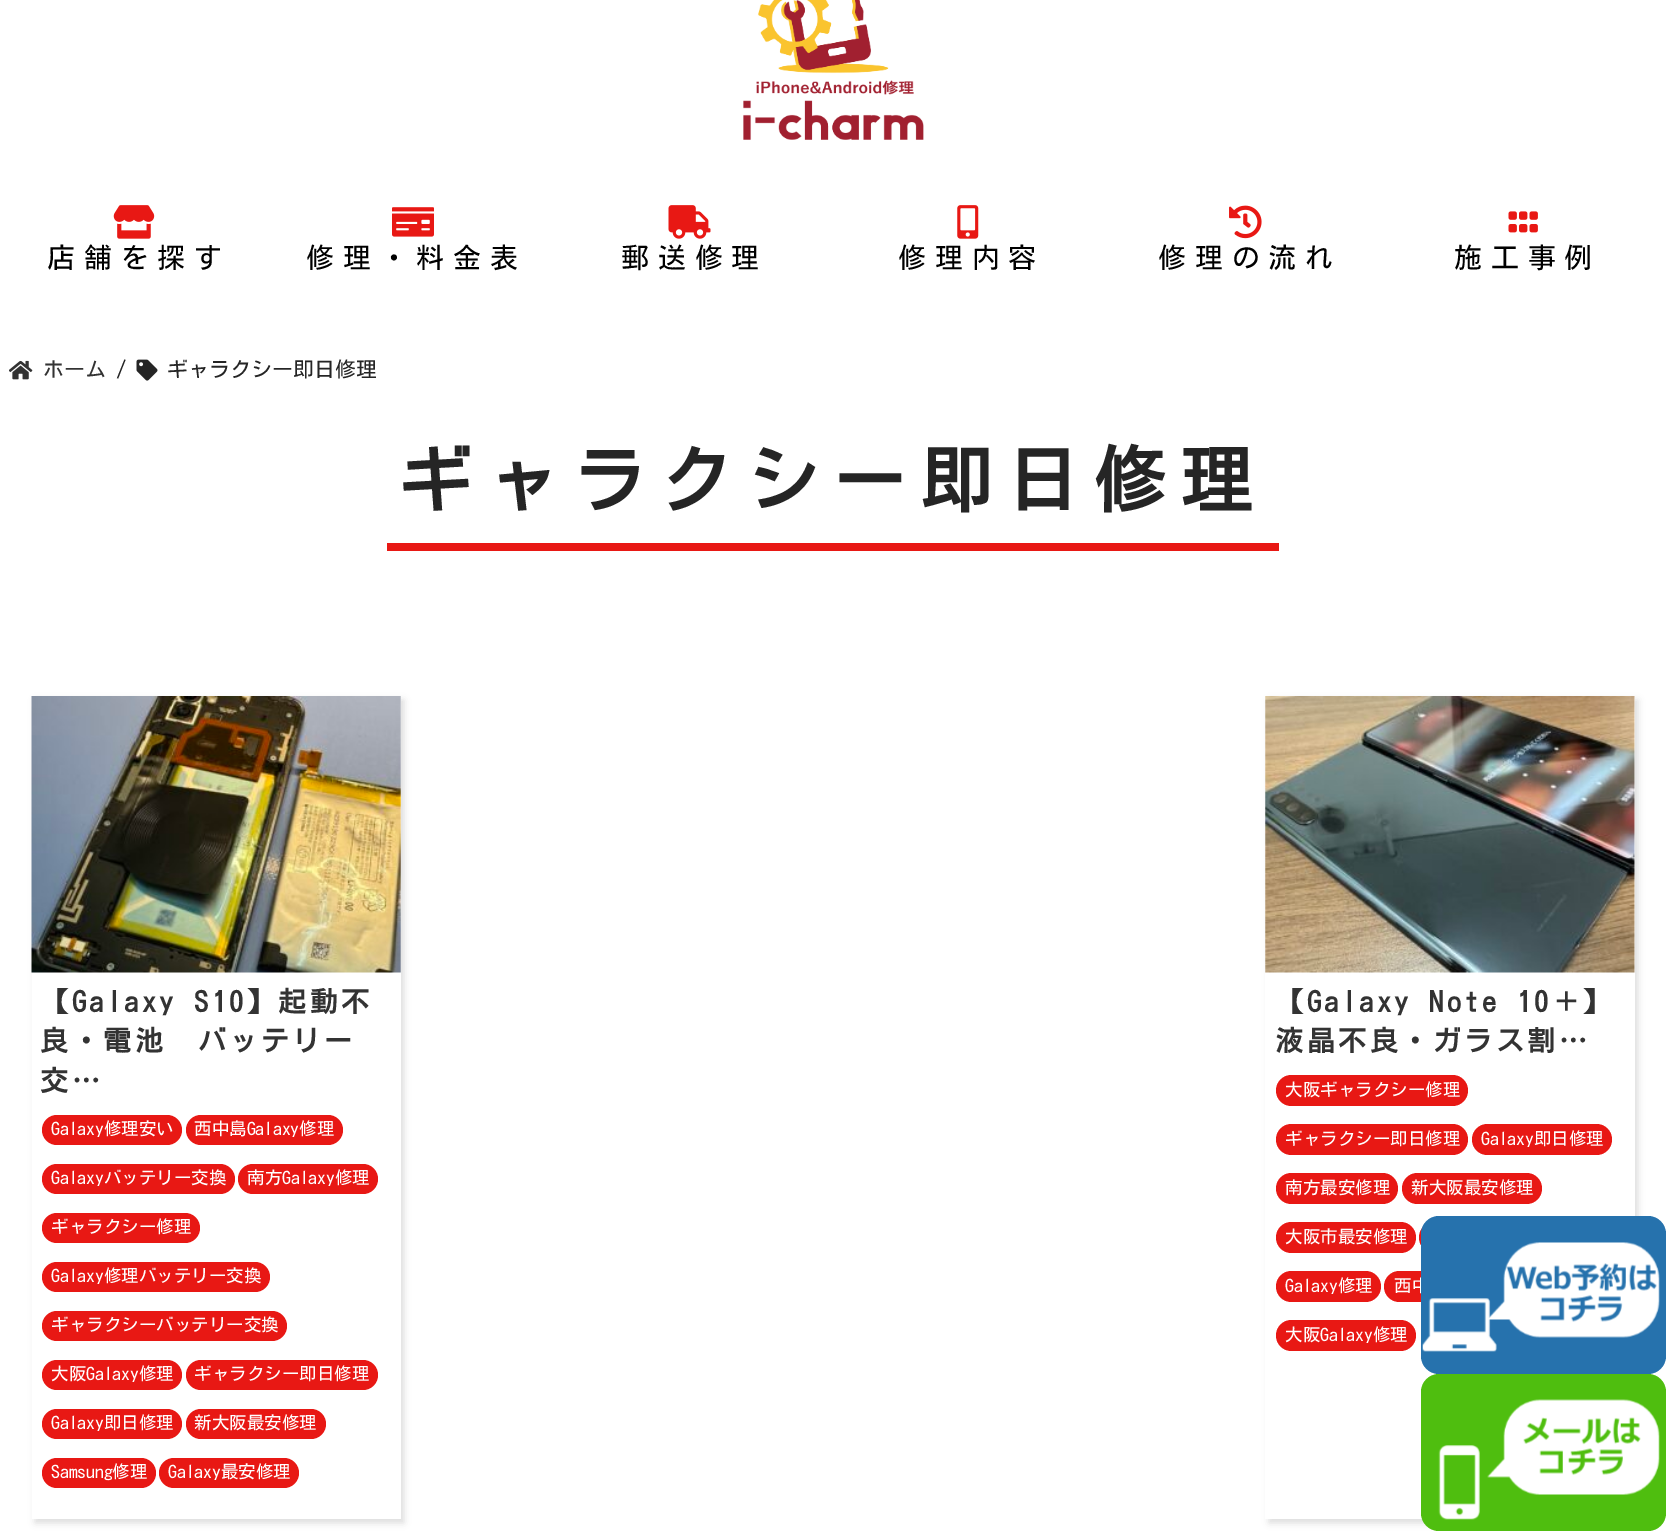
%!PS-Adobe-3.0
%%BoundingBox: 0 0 1666 1531
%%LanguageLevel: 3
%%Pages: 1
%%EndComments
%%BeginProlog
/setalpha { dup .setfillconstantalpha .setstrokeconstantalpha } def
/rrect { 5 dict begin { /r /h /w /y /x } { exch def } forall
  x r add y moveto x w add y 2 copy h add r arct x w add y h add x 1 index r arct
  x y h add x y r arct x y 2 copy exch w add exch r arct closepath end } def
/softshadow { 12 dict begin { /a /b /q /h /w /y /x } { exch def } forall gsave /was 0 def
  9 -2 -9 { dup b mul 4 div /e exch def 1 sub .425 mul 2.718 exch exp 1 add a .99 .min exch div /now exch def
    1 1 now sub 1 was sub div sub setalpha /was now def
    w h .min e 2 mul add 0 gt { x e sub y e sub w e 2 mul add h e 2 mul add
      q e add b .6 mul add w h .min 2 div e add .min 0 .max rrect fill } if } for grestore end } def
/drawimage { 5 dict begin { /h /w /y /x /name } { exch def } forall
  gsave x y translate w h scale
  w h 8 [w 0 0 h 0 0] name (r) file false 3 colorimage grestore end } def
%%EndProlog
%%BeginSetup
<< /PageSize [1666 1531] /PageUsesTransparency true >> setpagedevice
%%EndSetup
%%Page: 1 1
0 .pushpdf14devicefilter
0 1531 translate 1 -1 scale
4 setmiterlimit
1 setgray
0 0 1666 1531 rectfill
(images/1.raw) 743 0 181 140 drawimage
(images/2.raw) 113 205 42 34 drawimage
(images/3.raw) 392 207 42 30 drawimage
(images/4.raw) 668 205 43 34 drawimage
(images/5.raw) 957 205 22 34 drawimage
(images/6.raw) 1229 205 33 34 drawimage
(images/7.raw) 1508 211 30 22 drawimage
0.867 setgray
1269 700 369 823 0 3.5 1 softshadow
1 setgray
1265 697 370 822 rectfill
0.31 0.745 0.059 setrgbcolor
1421 1374 245 157 18 rrect fill
(images/10.raw) 1438 1445 42 75 drawimage
(images/11.raw) 1487 1399 173 96 drawimage
(images/12.raw) 9 360 24 20 drawimage
(images/13.raw) 136 359 22 22 drawimage
0.91 0.094 0.078 setrgbcolor
387 543 892 8 rectfill
0.867 setgray
35 700 369 823 0 3.5 1 softshadow
1 setgray
32 697 369 822 rectfill
(images/14.raw) 31 696 370 277 drawimage
0.91 0.094 0.078 setrgbcolor
42 1115 140 30 15 rrect fill
186 1115 157 30 15 rrect fill
42 1164 193 30 15 rrect fill
238 1164 140 30 15 rrect fill
42 1213 158 30 15 rrect fill
42 1262 228 30 15 rrect fill
42 1311 245 30 15 rrect fill
42 1360 140 30 15 rrect fill
186 1360 192 30 15 rrect fill
42 1409 140 30 15 rrect fill
186 1409 140 30 15 rrect fill
42 1458 114 30 15 rrect fill
159 1458 140 30 15 rrect fill
(images/15.raw) 1265 696 370 277 drawimage
1276 1075 192 31 15.5 rrect fill
1276 1124 192 31 15.5 rrect fill
1472 1124 140 31 15.5 rrect fill
1276 1173 122 31 15.5 rrect fill
1402 1173 140 31 15.5 rrect fill
1276 1222 140 31 15.5 rrect fill
1419 1222 140 31 15.5 rrect fill
1276 1271 105 31 15.5 rrect fill
1384 1271 140 31 15.5 rrect fill
1276 1320 140 31 15.5 rrect fill
/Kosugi-Regular [28 0 0 -28 0 0] selectfont
0 setgray
47 268 moveto 8.75 0 (店舗を探す) ashow
306 268 moveto 8.75 0 (修理・料金表) ashow
621 268 moveto 8.75 0 (郵送修理) ashow
898 268 moveto 8.75 0 (修理内容) ashow
1158 268 moveto 8.75 0 (修理の流れ) ashow
1454 268 moveto 8.75 0 (施工事例) ashow
/Kosugi-Regular [21 0 0 -21 0 0] selectfont
0.2 setgray
43 377 moveto (ホーム) show
0.145 setgray
116 377 moveto (/) show
167 377 moveto (ギャラクシー即日修理) show
/Kosugi-Bold [72.75 0 0 -72.75 0 0] selectfont
399 507 moveto 14 0 (ギャラクシー即日修理) ashow
/Kosugi-Bold [28 0 0 -28 0 0] selectfont
0.2 setgray
40 1012 moveto 3.5 0 (【Galaxy S10】起動不) ashow
40 1051 moveto 3.5 0 (良・電池　バッテリー) ashow
40 1091 moveto 3.5 0 (交…) ashow
/Kosugi-Regular [17.5 0 0 -17.5 0 0] selectfont
1 setgray
51 1135 moveto (Galaxy修理安い) show
194 1135 moveto (西中島Galaxy修理) show
51 1184 moveto (Galaxyバッテリー交換) show
247 1184 moveto (南方Galaxy修理) show
51 1233 moveto (ギャラクシー修理) show
51 1282 moveto (Galaxy修理バッテリー交換) show
51 1331 moveto (ギャラクシーバッテリー交換) show
51 1380 moveto (大阪Galaxy修理) show
194 1380 moveto (ギャラクシー即日修理) show
51 1429 moveto (Galaxy即日修理) show
194 1429 moveto (新大阪最安修理) show
51 1478 moveto (Samsung修理) show
168 1478 moveto (Galaxy最安修理) show
/Kosugi-Bold [28 0 0 -28 0 0] selectfont
0.2 setgray
1275 1012 moveto 3.5 0 (【Galaxy Note 10＋】) ashow
1275 1051 moveto 3.5 0 (液晶不良・ガラス割…) ashow
/Kosugi-Regular [17.5 0 0 -17.5 0 0] selectfont
1 setgray
1285 1096 moveto (大阪ギャラクシー修理) show
1285 1145 moveto (ギャラクシー即日修理) show
1481 1145 moveto (Galaxy即日修理) show
1285 1194 moveto (南方最安修理) show
1411 1194 moveto (新大阪最安修理) show
1285 1243 moveto (大阪市最安修理) show
1285 1292 moveto (Galaxy修理) show
1394 1292 moveto (西中) show
0.149 0.447 0.678 setrgbcolor
1421 1216 245 158 18 rrect fill
(images/8.raw) 1422 1298 75 54 drawimage
(images/9.raw) 1488 1242 172 96 drawimage
1 setgray
1285 1341 moveto (大阪Galaxy修理) show
.poppdf14devicefilter showpage
%%EOF
